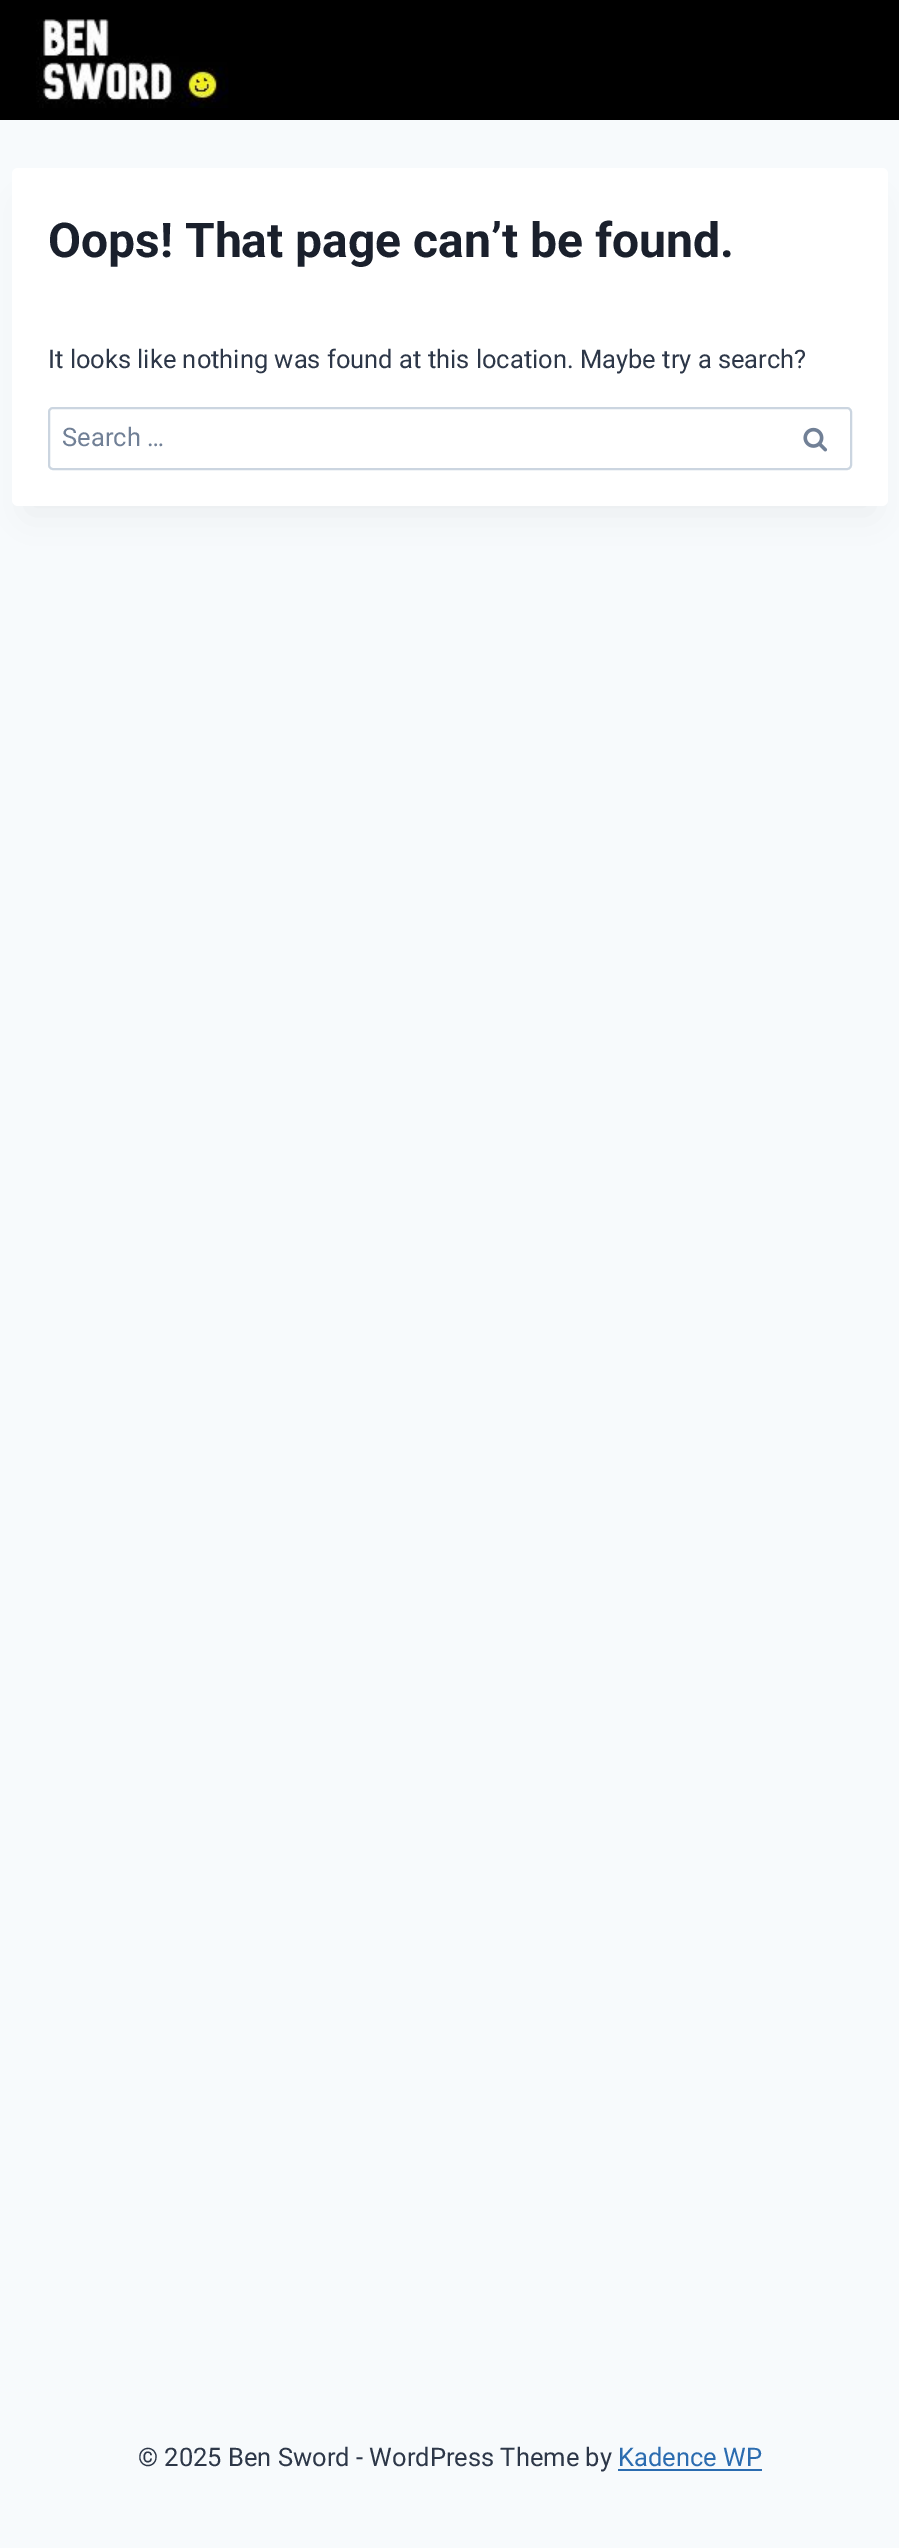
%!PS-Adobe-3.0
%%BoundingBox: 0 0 899 2548
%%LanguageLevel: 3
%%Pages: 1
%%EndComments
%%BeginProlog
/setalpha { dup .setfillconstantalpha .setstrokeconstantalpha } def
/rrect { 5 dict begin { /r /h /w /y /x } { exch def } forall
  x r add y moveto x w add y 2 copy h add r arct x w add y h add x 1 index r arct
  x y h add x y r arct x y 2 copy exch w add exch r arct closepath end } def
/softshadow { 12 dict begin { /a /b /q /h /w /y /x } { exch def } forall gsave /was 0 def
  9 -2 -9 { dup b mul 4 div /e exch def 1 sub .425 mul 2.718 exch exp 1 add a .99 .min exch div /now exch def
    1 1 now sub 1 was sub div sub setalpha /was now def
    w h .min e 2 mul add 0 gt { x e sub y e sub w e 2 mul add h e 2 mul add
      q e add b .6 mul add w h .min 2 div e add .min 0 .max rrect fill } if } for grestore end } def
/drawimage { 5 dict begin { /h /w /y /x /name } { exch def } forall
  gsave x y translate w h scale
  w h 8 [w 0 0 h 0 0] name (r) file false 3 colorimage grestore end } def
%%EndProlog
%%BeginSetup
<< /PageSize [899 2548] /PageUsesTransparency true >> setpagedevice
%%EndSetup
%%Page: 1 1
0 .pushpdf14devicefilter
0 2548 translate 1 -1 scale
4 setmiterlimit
0.969 0.98 0.988 setrgbcolor
0 0 899 2548 rectfill
0 setgray
0 0 899 120 rectfill
(images/1.raw) 36 19 193 89 drawimage
27 206 846 307 0 19 0.05 softshadow
1 setgray
12 168 876 338 6 rrect fill
0.796 0.835 0.878 setrgbcolor
2 setlinewidth
49 408 802 61 4 rrect stroke
(images/2.raw) 803 427 25 25 drawimage
0.169 0.424 0.69 setrgbcolor
618 2469 144 2 rectfill
/Roboto-Bold [48 0 0 -48 0 0] selectfont
0.102 0.125 0.173 setrgbcolor
48 257 moveto (Oops! That page can’t be found.) show
/Roboto-Regular [25.5 0 0 -25.5 0 0] selectfont
0.176 0.216 0.282 setrgbcolor
48 368 moveto (It looks like nothing was found at this location. Maybe try a search?) show
0.443 0.502 0.588 setrgbcolor
62 446 moveto (Search …) show
0.176 0.216 0.282 setrgbcolor
138 2466 moveto (© 2025 Ben Sword - WordPress Theme by) show
0.169 0.424 0.69 setrgbcolor
618 2466 moveto (Kadence WP) show
.poppdf14devicefilter showpage
%%EOF
